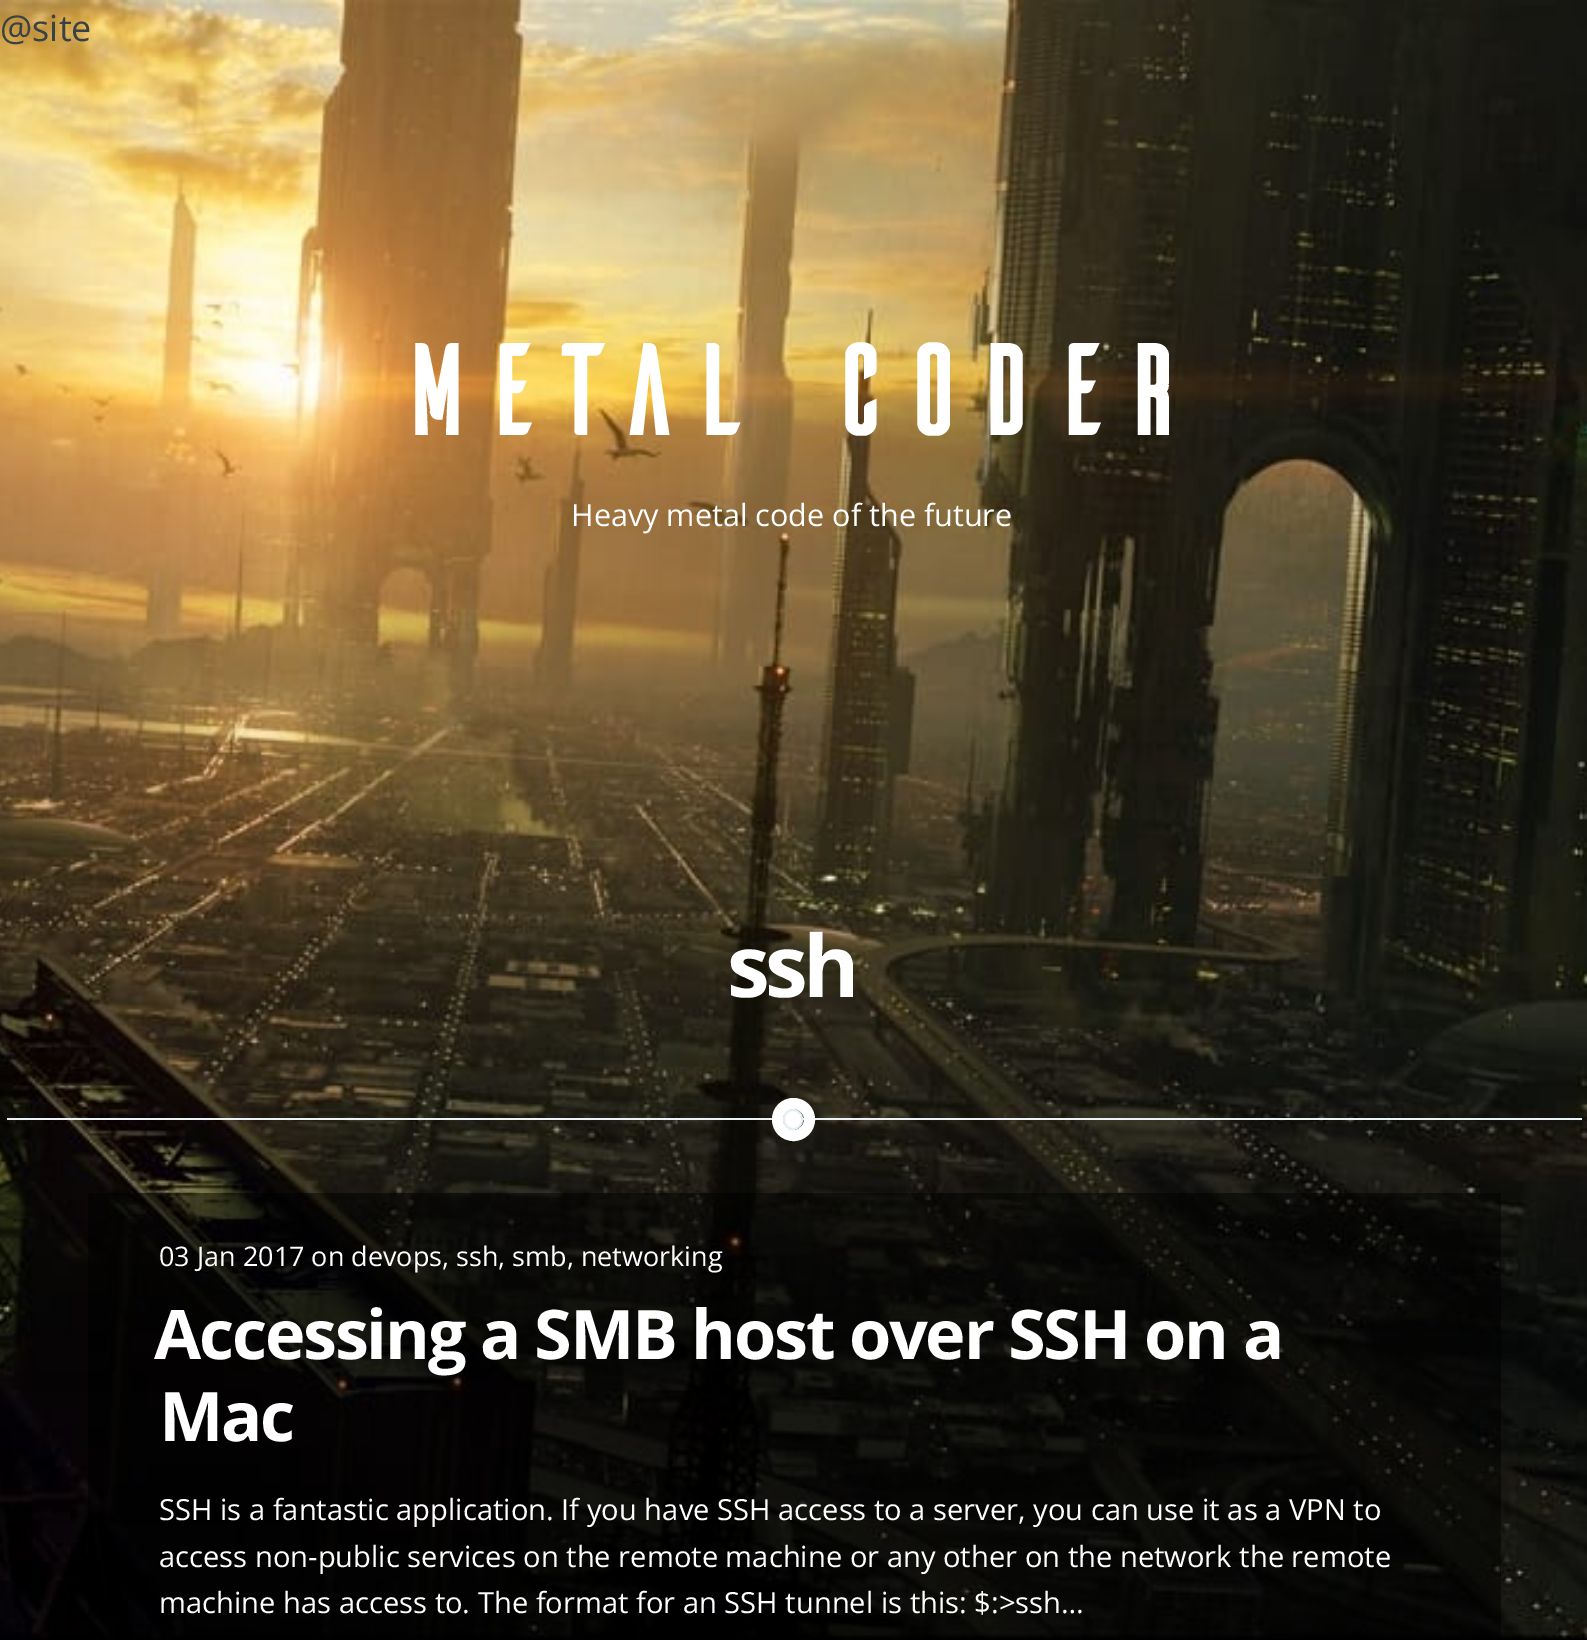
%!PS-Adobe-3.0
%%BoundingBox: 0 0 1587 1640
%%LanguageLevel: 3
%%Pages: 1
%%EndComments
%%BeginProlog
/setalpha { dup .setfillconstantalpha .setstrokeconstantalpha } def
/rrect { 5 dict begin { /r /h /w /y /x } { exch def } forall
  x r add y moveto x w add y 2 copy h add r arct x w add y h add x 1 index r arct
  x y h add x y r arct x y 2 copy exch w add exch r arct closepath end } def
/drawimage { 5 dict begin { /h /w /y /x /name } { exch def } forall
  gsave x y translate w h scale
  w h 8 [w 0 0 h 0 0] name (r) file false 3 colorimage grestore end } def
%%EndProlog
%%BeginSetup
<< /PageSize [1587 1640] /PageUsesTransparency true >> setpagedevice
%%EndSetup
%%Page: 1 1
0 .pushpdf14devicefilter
0 1640 translate 1 -1 scale
4 setmiterlimit
1 setgray
0 0 1587 1640 rectfill
(images/1.raw) 0 0 1587 1640 drawimage
0.922 0.949 0.965 setrgbcolor
7 1118 1575 2 rectfill
1 setgray
11 setlinewidth
newpath 793.5 1119.5 16 0 360 arc closepath stroke
784 1110 18 19 9 rrect gsave fill grestore
0.906 0.933 0.949 setrgbcolor
2 setlinewidth
stroke
0.5 setalpha
0 setgray
88 1193 1413 445 rectfill
/OpenSans-Regular [36 0 0 -36 0 0] selectfont
1 setalpha
0.227 0.255 0.271 setrgbcolor
0 41 moveto (@site) show
/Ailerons-Bold [126 0 0 -126 0 0] selectfont
1 setgray
396 435 moveto -2.25 0 (METAL CODER) ashow
/OpenSans-Regular [30.6 0 0 -30.6 0 0] selectfont
571 526 moveto (Heavy metal code of the future) show
/OpenSans-Bold [86 0 0 -86 0 0] selectfont
727 997 moveto -4.5 0 (ssh) ashow
/OpenSans-Regular [27 0 0 -27 0 0] selectfont
159 1266 moveto (03 Jan 2017 on devops, ssh, smb, networking) show
/OpenSans-Bold [68.4 0 0 -68.4 0 0] selectfont
154 1359 moveto -2.25 0 (Accessing a SMB host over SSH on a) ashow
159 1441 moveto -2.25 0 (Mac) ashow
/OpenSans-Regular [29.15 0 0 -29.15 0 0] selectfont
159 1520 moveto (SSH is a fantastic application. If you have SSH access to a server, you can use it as a VPN to) show
159 1567 moveto (access non-public services on the remote machine or any other on the network the remote) show
159 1613 moveto (machine has access to. The format for an SSH tunnel is this: $:>ssh…) show
.poppdf14devicefilter showpage
%%EOF
